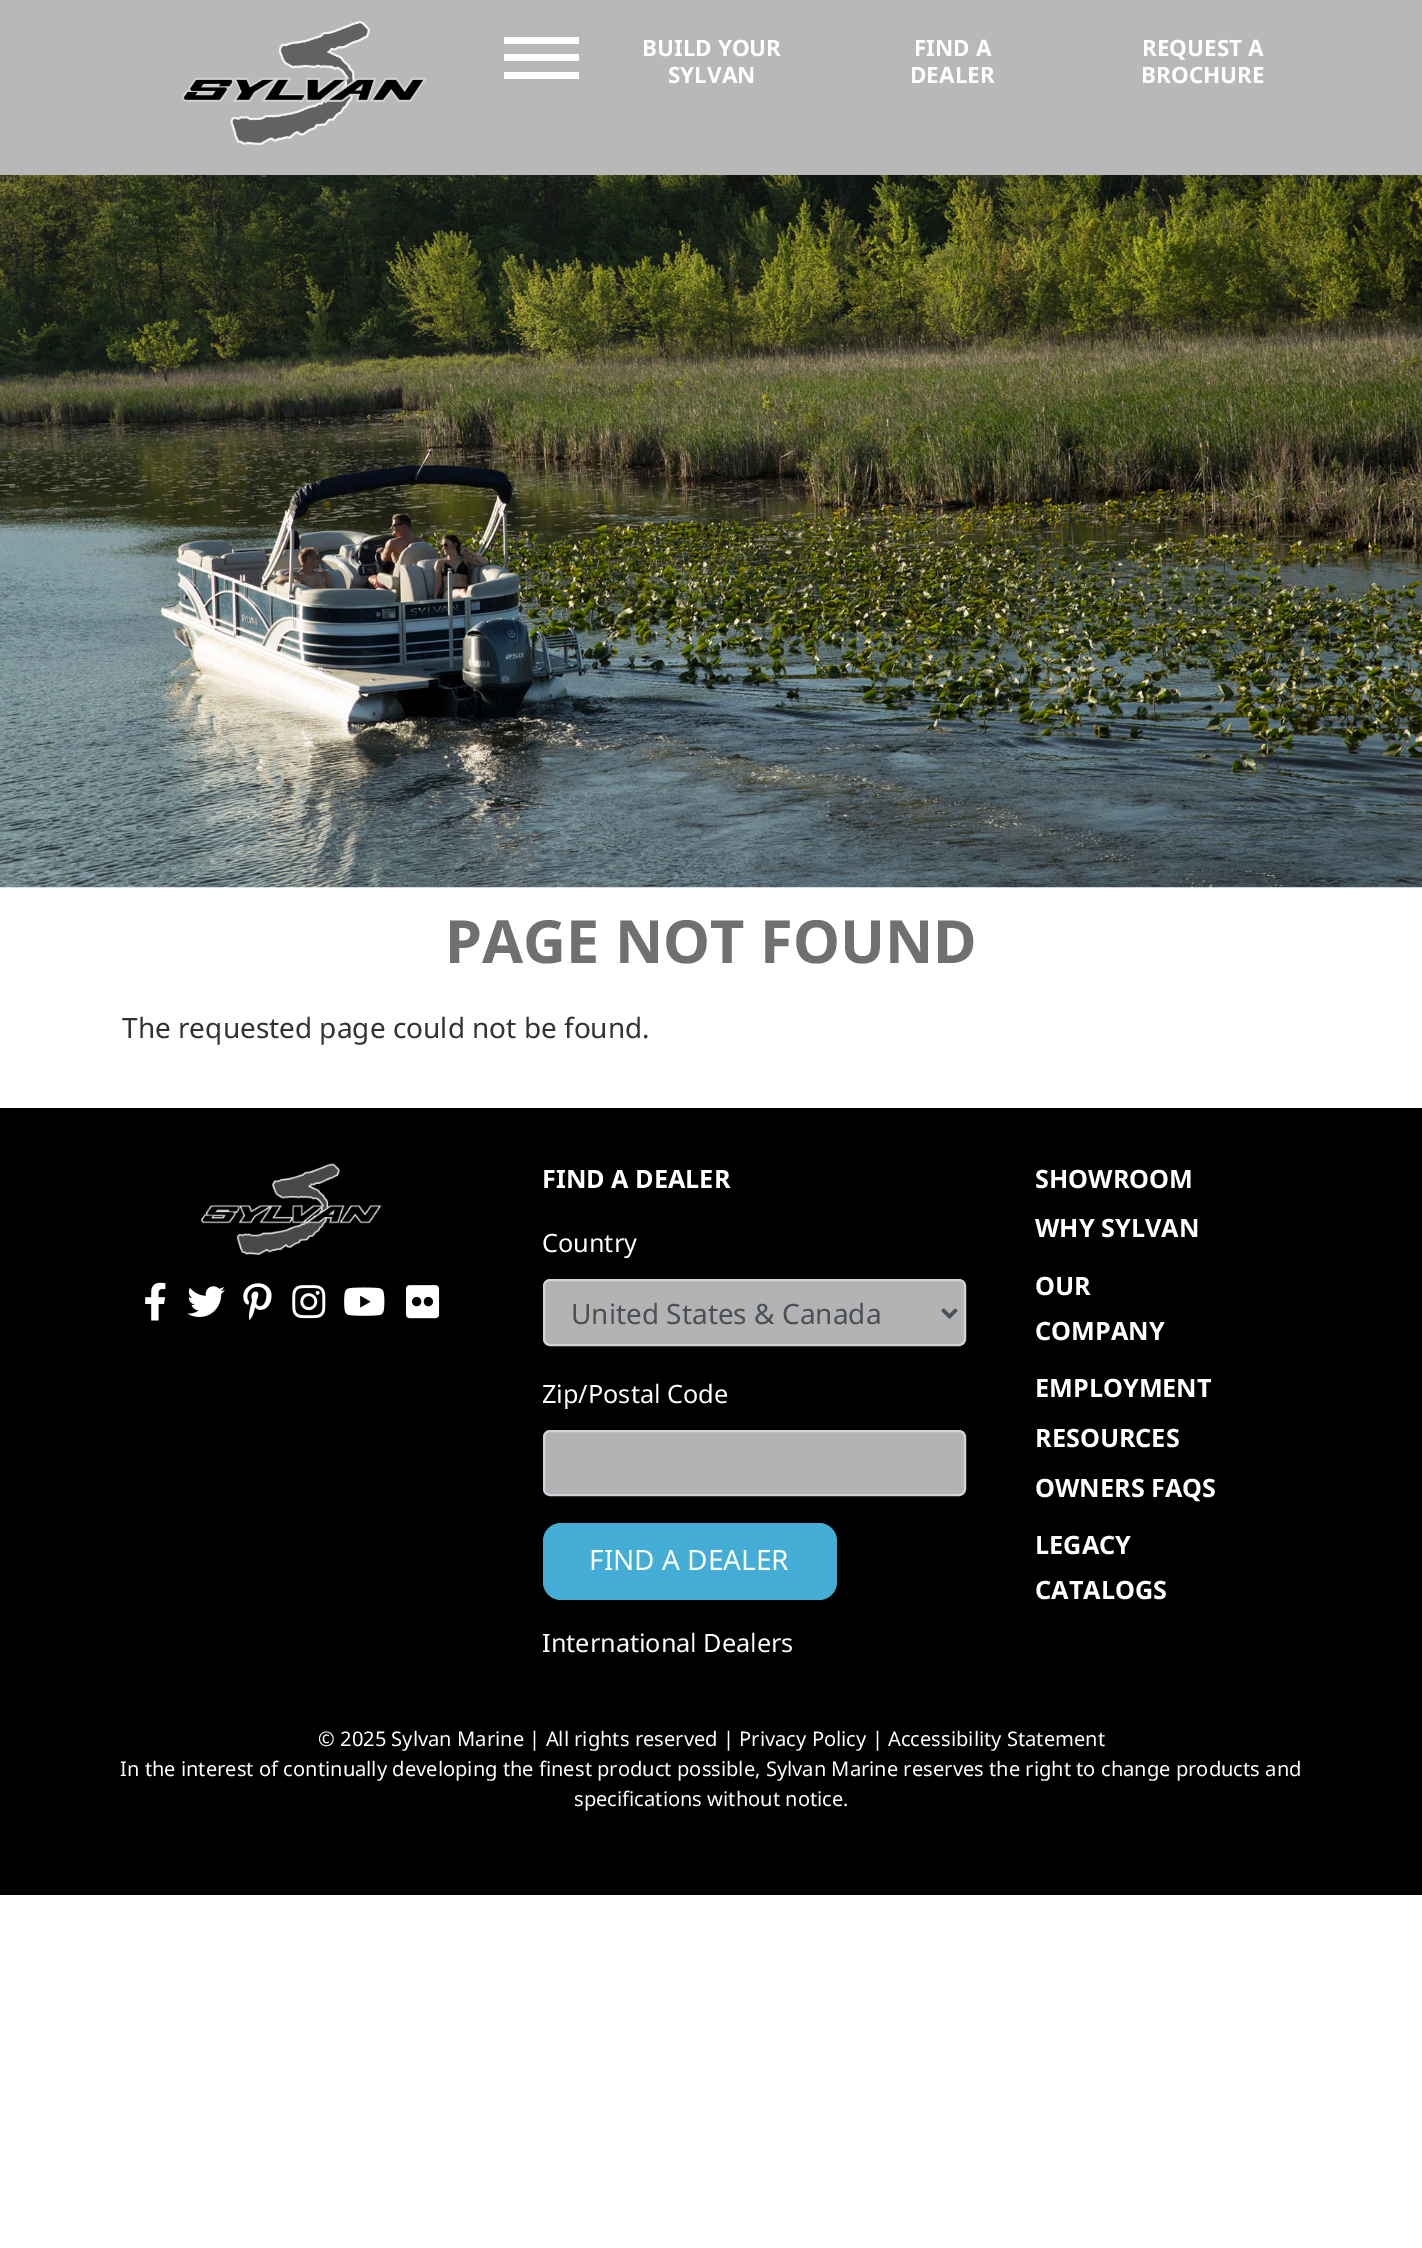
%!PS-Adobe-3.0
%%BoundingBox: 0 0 1422 2248
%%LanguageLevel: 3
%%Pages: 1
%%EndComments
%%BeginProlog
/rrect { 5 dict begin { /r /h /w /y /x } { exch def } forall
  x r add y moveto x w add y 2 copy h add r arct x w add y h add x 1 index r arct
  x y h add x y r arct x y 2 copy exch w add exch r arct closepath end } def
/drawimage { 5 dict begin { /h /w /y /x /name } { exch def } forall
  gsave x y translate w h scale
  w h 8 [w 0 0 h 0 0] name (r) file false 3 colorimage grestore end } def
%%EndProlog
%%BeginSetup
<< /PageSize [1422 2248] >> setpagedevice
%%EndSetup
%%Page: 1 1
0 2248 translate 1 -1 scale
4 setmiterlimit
1 setgray
0 0 1422 2248 rectfill
0.722 setgray
0 0 1422 175 rectfill
(images/1.raw) 182 21 245 125 drawimage
1 setgray
504 37 75 7 rectfill
504 54 75 7 rectfill
504 72 75 7 rectfill
(images/2.raw) 0 175 1422 713 drawimage
0 setgray
0 1108 1422 787 rectfill
(images/3.raw) 201 1163 181 92 drawimage
(images/4.raw) 145 1282 21 39 drawimage
(images/5.raw) 187 1286 38 31 drawimage
(images/6.raw) 243 1283 29 37 drawimage
(images/7.raw) 292 1285 34 34 drawimage
(images/8.raw) 344 1287 41 29 drawimage
(images/9.raw) 406 1285 34 34 drawimage
0.702 setgray
544 1280 421 65 6 rrect gsave fill grestore
0.808 0.831 0.855 setrgbcolor
2 setlinewidth
stroke
0.286 0.314 0.341 setrgbcolor
3.5 setlinewidth
newpath 942.5 1309.5 moveto 949.5 1316.5 lineto 956.5 1309.5 lineto stroke
0.702 setgray
544 1431 421 64 6 rrect gsave fill grestore
0.808 0.831 0.855 setrgbcolor
2 setlinewidth
stroke
0.263 0.678 0.835 setrgbcolor
543 1523 294 77 18 rrect fill
/NotoSans-Bold [22.5 0 0 -22.5 0 0] selectfont
1 setgray
642 56 moveto (BUILD YOUR) show
668 83 moveto (SYLVAN) show
914 56 moveto (FIND A) show
910 83 moveto (DEALER) show
1142 56 moveto (REQUEST A) show
1141 83 moveto (BROCHURE) show
/NotoSans-Bold [59.5 0 0 -59.5 0 0] selectfont
0.439 setgray
445 963 moveto (PAGE NOT FOUND) show
/NotoSans-Regular [28 0 0 -28 0 0] selectfont
0.2 setgray
122 1038 moveto (The requested page could not be found.) show
/NotoSans-Bold [25.25 0 0 -25.25 0 0] selectfont
1 setgray
542 1188 moveto (FIND A DEALER) show
/NotoSans-Regular [25.25 0 0 -25.25 0 0] selectfont
542 1252 moveto (Country) show
/NotoSans-Regular [28 0 0 -28 0 0] selectfont
0.286 0.314 0.341 setrgbcolor
571 1324 moveto (United States & Canada) show
/NotoSans-Regular [25.25 0 0 -25.25 0 0] selectfont
1 setgray
542 1403 moveto (Zip/Postal Code) show
/NotoSans-Regular [28 0 0 -28 0 0] selectfont
589 1570 moveto (FIND A DEALER) show
/NotoSans-Regular [25.25 0 0 -25.25 0 0] selectfont
542 1652 moveto (International Dealers) show
/NotoSans-Bold [25.25 0 0 -25.25 0 0] selectfont
1035 1188 moveto (SHOWROOM) show
1035 1237 moveto (WHY SYLVAN) show
1035 1295 moveto (OUR) show
1035 1340 moveto (COMPANY) show
1035 1397 moveto (EMPLOYMENT) show
1035 1447 moveto (RESOURCES) show
1035 1497 moveto (OWNERS FAQS) show
1035 1554 moveto (LEGACY) show
1035 1599 moveto (CATALOGS) show
/NotoSans-Regular [20.15 0 0 -20.15 0 0] selectfont
318 1746 moveto (© 2025 Sylvan Marine | All rights reserved | Privacy Policy | Accessibility Statement) show
120 1776 moveto (In the interest of continually developing the finest product possible, Sylvan Marine reserves the right to change products and) show
574 1806 moveto (specifications without notice.) show
showpage
%%EOF
